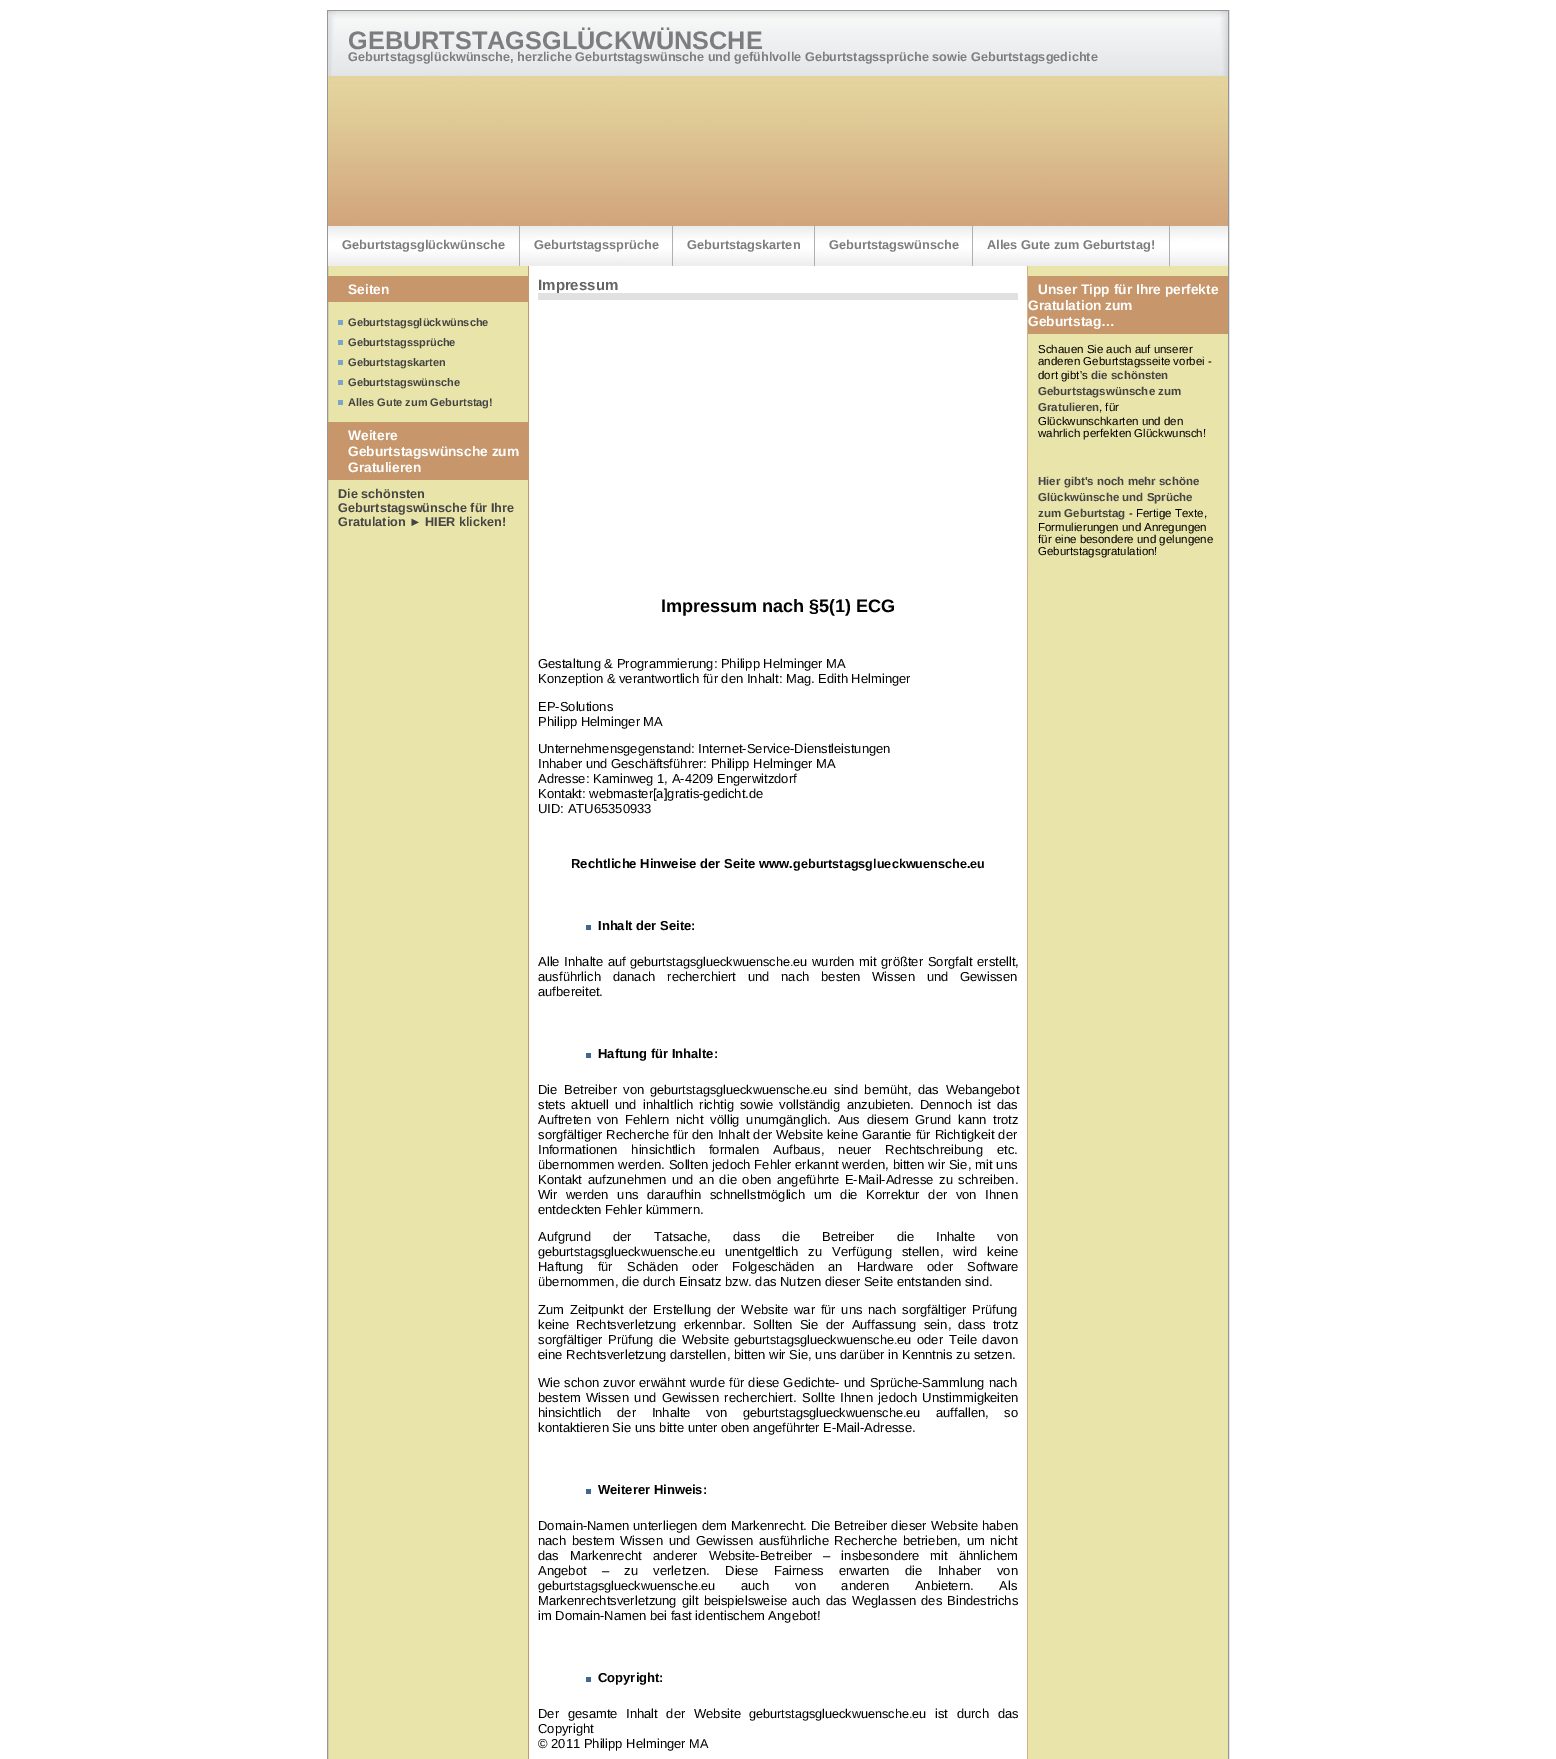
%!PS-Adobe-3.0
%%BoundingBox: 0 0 1556 1759
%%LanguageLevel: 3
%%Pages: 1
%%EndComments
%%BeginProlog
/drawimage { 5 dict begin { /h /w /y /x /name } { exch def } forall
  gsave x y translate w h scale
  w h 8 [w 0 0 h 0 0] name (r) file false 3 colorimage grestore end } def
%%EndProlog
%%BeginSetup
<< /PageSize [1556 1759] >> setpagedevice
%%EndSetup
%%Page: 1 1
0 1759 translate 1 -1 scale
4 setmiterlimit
1 setgray
0 0 1556 1759 rectfill
(images/1.raw) 328 266 900 1493 drawimage
0.588 setgray
327.5 10.5 901 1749 rectstroke
(images/2.raw) 328 11 900 65 drawimage
(images/3.raw) 328 76 900 150 drawimage
(images/4.raw) 328 226 900 40 drawimage
0.686 setgray
519 226 1 40 rectfill
672 226 1 40 rectfill
814 226 1 40 rectfill
972 226 1 40 rectfill
1169 226 1 40 rectfill
0.784 0.588 0.42 setrgbcolor
328 276 200 26 rectfill
0.49 0.647 0.788 setrgbcolor
338 320 5 5 rectfill
338 340 5 5 rectfill
338 360 5 5 rectfill
338 380 5 5 rectfill
338 400 5 5 rectfill
0.784 0.588 0.42 setrgbcolor
328 422 200 58 rectfill
0.882 setgray
538 293 480 7 rectfill
0.239 0.408 0.561 setrgbcolor
586 925 5 5 rectfill
586 1053 5 5 rectfill
586 1489 5 5 rectfill
586 1677 5 5 rectfill
0.91 0.894 0.663 setrgbcolor
1028 334 4 122 rectfill
0.784 0.588 0.42 setrgbcolor
1028 276 200 58 rectfill
0.91 0.894 0.663 setrgbcolor
1028 471 4 103 rectfill
/LiberationSans-Bold [25.3 0 0 -25.3 0 0] selectfont
0.49 setgray
348 49 moveto (GEBURTSTAGSGLÜCKWÜNSCHE) show
/LiberationSans-Bold [12.67 0 0 -12.67 0 0] selectfont
348 61 moveto (Geburtstagsglückwünsche, herzliche Geburtstagswünsche und gefühlvolle Geburtstagssprüche sowie Geburtstagsgedichte) show
/LiberationSans-Bold [12.75 0 0 -12.75 0 0] selectfont
342 249 moveto (Geburtstagsglückwünsche) show
534 249 moveto (Geburtstagssprüche) show
687 249 moveto (Geburtstagskarten) show
829 249 moveto (Geburtstagswünsche) show
987 249 moveto (Alles Gute zum Geburtstag!) show
/LiberationSans-Bold [13.75 0 0 -13.75 0 0] selectfont
1 setgray
348 294 moveto (Seiten) show
/LiberationSans-Bold [11 0 0 -11 0 0] selectfont
0.267 setgray
348 326 moveto (Geburtstagsglückwünsche) show
348 346 moveto (Geburtstagssprüche) show
348 366 moveto (Geburtstagskarten) show
348 386 moveto (Geburtstagswünsche) show
348 406 moveto (Alles Gute zum Geburtstag!) show
/LiberationSans-Bold [13.75 0 0 -13.75 0 0] selectfont
1 setgray
348 440 moveto (Weitere) show
348 456 moveto (Geburtstagswünsche zum) show
348 472 moveto (Gratulieren) show
/LiberationSans-Bold [12.67 0 0 -12.67 0 0] selectfont
0.267 setgray
338 498 moveto (Die schönsten) show
338 512 moveto (Geburtstagswünsche für Ihre) show
338 526 moveto (Gratulation ► HIER klicken!) show
/LiberationSans-Bold [15 0 0 -15 0 0] selectfont
0.392 setgray
538 290 moveto (Impressum) show
/LiberationSans-Bold [18 0 0 -18 0 0] selectfont
0 setgray
661 612 moveto (Impressum nach §5\(1\) ECG) show
/LiberationSans-Regular [13 0 0 -13 0 0] selectfont
538 668 moveto (Gestaltung & Programmierung: Philipp Helminger MA) show
538 683 moveto (Konzeption & verantwortlich für den Inhalt: Mag. Edith Helminger) show
538 711 moveto (EP-Solutions) show
538 726 moveto (Philipp Helminger MA) show
538 753 moveto (Unternehmensgegenstand: Internet-Service-Dienstleistungen) show
538 768 moveto (Inhaber und Geschäftsführer: Philipp Helminger MA) show
538 783 moveto (Adresse: Kaminweg 1, A-4209 Engerwitzdorf) show
538 798 moveto (Kontakt: webmaster[a]gratis-gedicht.de) show
538 813 moveto (UID: ATU65350933) show
/LiberationSans-Bold [13 0 0 -13 0 0] selectfont
571 868 moveto (Rechtliche Hinweise der Seite www.) show
/LiberationSans-Bold [12.67 0 0 -12.67 0 0] selectfont
793 868 moveto (geburtstagsglueckwuensche.eu) show
/LiberationSans-Bold [13 0 0 -13 0 0] selectfont
598 930 moveto (Inhalt der Seite:) show
/LiberationSans-Regular [13 0 0 -13 0 0] selectfont
538 966 moveto 1 0 32 (Alle Inhalte auf) widthshow
/LiberationSans-Regular [12.67 0 0 -12.67 0 0] selectfont
630 966 moveto (geburtstagsglueckwuensche.eu) show
/LiberationSans-Regular [13 0 0 -13 0 0] selectfont
812 966 moveto 1 0 32 (wurden mit größter Sorgfalt erstellt,) widthshow
538 981 moveto 8.25 0 32 (ausführlich danach recherchiert und nach besten Wissen und Gewissen) widthshow
538 996 moveto (aufbereitet.) show
/LiberationSans-Bold [13 0 0 -13 0 0] selectfont
598 1058 moveto (Haftung für Inhalte:) show
/LiberationSans-Regular [13 0 0 -13 0 0] selectfont
538 1094 moveto 3 0 32 (Die Betreiber von) widthshow
/LiberationSans-Regular [12.67 0 0 -12.67 0 0] selectfont
650 1094 moveto (geburtstagsglueckwuensche.eu) show
/LiberationSans-Regular [13 0 0 -13 0 0] selectfont
834 1094 moveto 3 0 32 (sind bemüht, das Webangebot) widthshow
538 1109 moveto 2.4 0 32 (stets aktuell und inhaltlich richtig sowie vollständig anzubieten. Dennoch ist das) widthshow
538 1124 moveto 3.1 0 32 (Auftreten von Fehlern nicht völlig unumgänglich. Aus diesem Grund kann trotz) widthshow
538 1139 moveto 0.3 0 32 (sorgfältiger Recherche für den Inhalt der Website keine Garantie für Richtigkeit der) widthshow
538 1154 moveto 10.25 0 32 (Informationen hinsichtlich formalen Aufbaus, neuer Rechtschreibung etc.) widthshow
538 1169 moveto 0.3 0 32 (übernommen werden. Sollten jedoch Fehler erkannt werden, bitten wir Sie, mit uns) widthshow
538 1184 moveto 2 0 32 (Kontakt aufzunehmen und an die oben angeführte E-Mail-Adresse zu schreiben.) widthshow
538 1199 moveto 5 0 32 (Wir werden uns daraufhin schnellstmöglich um die Korrektur der von Ihnen) widthshow
538 1214 moveto (entdeckten Fehler kümmern.) show
538 1241 moveto 18.5 0 32 (Aufgrund der Tatsache, dass die Betreiber die Inhalte von) widthshow
/LiberationSans-Regular [12.67 0 0 -12.67 0 0] selectfont
538 1256 moveto (geburtstagsglueckwuensche.eu) show
/LiberationSans-Regular [13 0 0 -13 0 0] selectfont
725 1256 moveto 6.5 0 32 (unentgeltlich zu Verfügung stellen, wird keine) widthshow
538 1271 moveto 10.5 0 32 (Haftung für Schäden oder Folgeschäden an Hardware oder Software) widthshow
538 1286 moveto (übernommen, die durch Einsatz bzw. das Nutzen dieser Seite entstanden sind.) show
538 1314 moveto 2.1 0 32 (Zum Zeitpunkt der Erstellung der Website war für uns nach sorgfältiger Prüfung) widthshow
538 1329 moveto 3.5 0 32 (keine Rechtsverletzung erkennbar. Sollten Sie der Auffassung sein, dass trotz) widthshow
538 1344 moveto 2 0 32 (sorgfältiger Prüfung die Website) widthshow
/LiberationSans-Regular [12.67 0 0 -12.67 0 0] selectfont
734 1344 moveto (geburtstagsglueckwuensche.eu) show
/LiberationSans-Regular [13 0 0 -13 0 0] selectfont
917 1344 moveto 2 0 32 (oder Teile davon) widthshow
538 1359 moveto (eine Rechtsverletzung darstellen, bitten wir Sie, uns darüber in Kenntnis zu setzen.) show
538 1387 moveto 0.5 0 32 (Wie schon zuvor erwähnt wurde für diese Gedichte- und Sprüche-Sammlung nach) widthshow
538 1402 moveto 2 0 32 (bestem Wissen und Gewissen recherchiert. Sollte Ihnen jedoch Unstimmigkeiten) widthshow
538 1417 moveto 12 0 32 (hinsichtlich der Inhalte von) widthshow
/LiberationSans-Regular [12.67 0 0 -12.67 0 0] selectfont
743 1417 moveto (geburtstagsglueckwuensche.eu) show
/LiberationSans-Regular [13 0 0 -13 0 0] selectfont
936 1417 moveto 12 0 32 (auffallen, so) widthshow
538 1432 moveto (kontaktieren Sie uns bitte unter oben angeführter E-Mail-Adresse.) show
/LiberationSans-Bold [13 0 0 -13 0 0] selectfont
598 1494 moveto (Weiterer Hinweis:) show
/LiberationSans-Regular [13 0 0 -13 0 0] selectfont
538 1530 moveto 0.5 0 32 (Domain-Namen unterliegen dem Markenrecht. Die Betreiber dieser Website haben) widthshow
538 1545 moveto 2.1 0 32 (nach bestem Wissen und Gewissen ausführliche Recherche betrieben, um nicht) widthshow
538 1560 moveto 7.25 0 32 (das Markenrecht anderer Website-Betreiber – insbesondere mit ähnlichem) widthshow
538 1575 moveto 11.75 0 32 (Angebot – zu verletzen. Diese Fairness erwarten die Inhaber von) widthshow
/LiberationSans-Regular [12.67 0 0 -12.67 0 0] selectfont
538 1590 moveto (geburtstagsglueckwuensche.eu) show
/LiberationSans-Regular [13 0 0 -13 0 0] selectfont
741 1590 moveto 22 0 32 (auch von anderen Anbietern. Als) widthshow
538 1605 moveto 1.5 0 32 (Markenrechtsverletzung gilt beispielsweise auch das Weglassen des Bindestrichs) widthshow
538 1620 moveto (im Domain-Namen bei fast identischem Angebot!) show
/LiberationSans-Bold [13 0 0 -13 0 0] selectfont
598 1682 moveto (Copyright:) show
/LiberationSans-Regular [13 0 0 -13 0 0] selectfont
538 1718 moveto 5 0 32 (Der gesamte Inhalt der Website) widthshow
/LiberationSans-Regular [12.67 0 0 -12.67 0 0] selectfont
749 1718 moveto (geburtstagsglueckwuensche.eu) show
/LiberationSans-Regular [13 0 0 -13 0 0] selectfont
935 1718 moveto 5 0 32 (ist durch das) widthshow
538 1733 moveto (Copyright) show
538 1748 moveto (© 2011 Philipp Helminger) show
/LiberationSans-Regular [12.67 0 0 -12.67 0 0] selectfont
689 1748 moveto (MA) show
/LiberationSans-Bold [13.75 0 0 -13.75 0 0] selectfont
1 setgray
1038 294 moveto (Unser Tipp für Ihre perfekte) show
1028 310 moveto (Gratulation zum) show
1028 326 moveto (Geburtstag…) show
/LiberationSans-Regular [11.5 0 0 -11.5 0 0] selectfont
0 setgray
1038 353 moveto (Schauen Sie auch auf unserer) show
1038 365 moveto (anderen Geburtstagsseite vorbei -) show
1038 379 moveto (dort gibt's) show
/LiberationSans-Bold [11.5 0 0 -11.5 0 0] selectfont
0.267 setgray
1091 379 moveto (die schönsten) show
1038 395 moveto (Geburtstagswünsche zum) show
1038 411 moveto (Gratulieren) show
/LiberationSans-Regular [11.5 0 0 -11.5 0 0] selectfont
0 setgray
1099 411 moveto (, für) show
1038 425 moveto (Glückwunschkarten und den) show
1038 437 moveto (wahrlich perfekten Glückwunsch!) show
/LiberationSans-Bold [11.5 0 0 -11.5 0 0] selectfont
0.267 setgray
1038 485 moveto (Hier gibt's noch mehr schöne) show
1038 501 moveto (Glückwünsche und Sprüche) show
1038 517 moveto (zum Geburtstag) show
/LiberationSans-Regular [11.5 0 0 -11.5 0 0] selectfont
0 setgray
1129 517 moveto (- Fertige Texte,) show
1038 531 moveto (Formulierungen und Anregungen) show
1038 543 moveto (für eine besondere und gelungene) show
1038 555 moveto (Geburtstagsgratulation!) show
showpage
%%EOF
